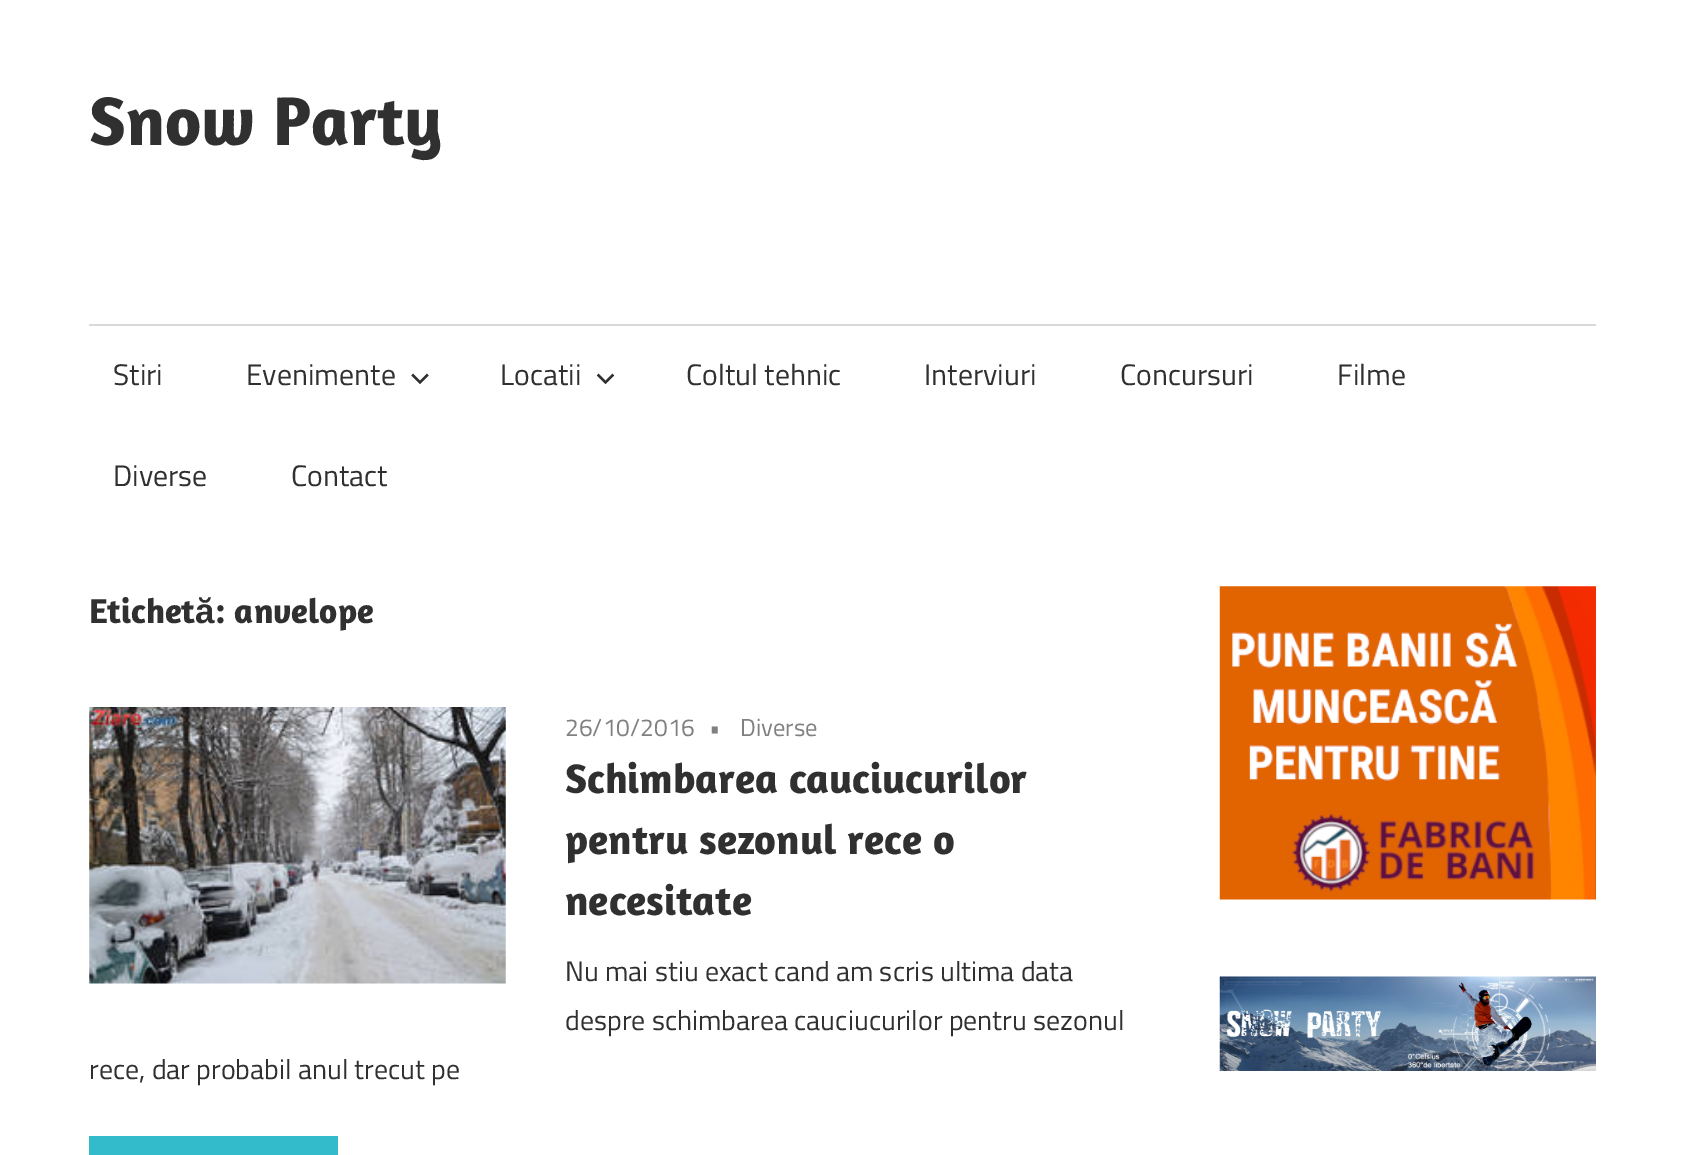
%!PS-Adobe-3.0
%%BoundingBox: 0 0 1684 1155
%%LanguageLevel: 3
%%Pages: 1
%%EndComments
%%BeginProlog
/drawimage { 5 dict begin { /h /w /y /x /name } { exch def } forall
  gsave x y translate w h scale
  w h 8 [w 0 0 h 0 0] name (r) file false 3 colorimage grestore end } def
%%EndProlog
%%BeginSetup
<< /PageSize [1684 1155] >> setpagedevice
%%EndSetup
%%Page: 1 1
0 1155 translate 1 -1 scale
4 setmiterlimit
1 setgray
0 0 1684 1155 rectfill
0.851 setgray
89 324 1507 2 rectfill
(images/1.raw) 411 373 18 12 drawimage
(images/2.raw) 596 373 19 12 drawimage
(images/3.raw) 89 707 417 277 drawimage
0.2 0.733 0.8 setrgbcolor
89 1136 249 19 rectfill
(images/4.raw) 1219 586 377 314 drawimage
(images/5.raw) 1219 976 377 95 drawimage
/Amaranth-Bold [70 0 0 -70 0 0] selectfont
0.188 setgray
89 145 moveto (Snow Party) show
/TitilliumWeb-Regular [29.75 0 0 -29.75 0 0] selectfont
113 385 moveto (Stiri) show
246 385 moveto (Evenimente) show
500 385 moveto (Locatii) show
686 385 moveto (Coltul tehnic) show
924 385 moveto (Interviuri) show
1120 385 moveto (Concursuri) show
1337 385 moveto (Filme) show
113 486 moveto (Diverse) show
291 486 moveto (Contact) show
/Amaranth-Bold [35 0 0 -35 0 0] selectfont
89 623 moveto (Etichet) show
/LiberationSans-Bold [35 0 0 -35 0 0] selectfont
195 623 moveto (ă) show
/Amaranth-Bold [35 0 0 -35 0 0] selectfont
215 623 moveto (: anvelope) show
/TitilliumWeb-Regular [24.5 0 0 -24.5 0 0] selectfont
0.502 setgray
565 736 moveto (26/10/2016) show
709 736 moveto (•) show
740 736 moveto (Diverse) show
/Amaranth-Bold [42 0 0 -42 0 0] selectfont
0.188 setgray
565 793 moveto (Schimbarea cauciucurilor) show
565 854 moveto (pentru sezonul rece o) show
565 915 moveto (necesitate) show
/TitilliumWeb-Regular [28 0 0 -28 0 0] selectfont
565 981 moveto (Nu mai stiu exact cand am scris ultima data) show
565 1030 moveto (despre schimbarea cauciucurilor pentru sezonul) show
89 1079 moveto (rece, dar probabil anul trecut pe) show
showpage
%%EOF
